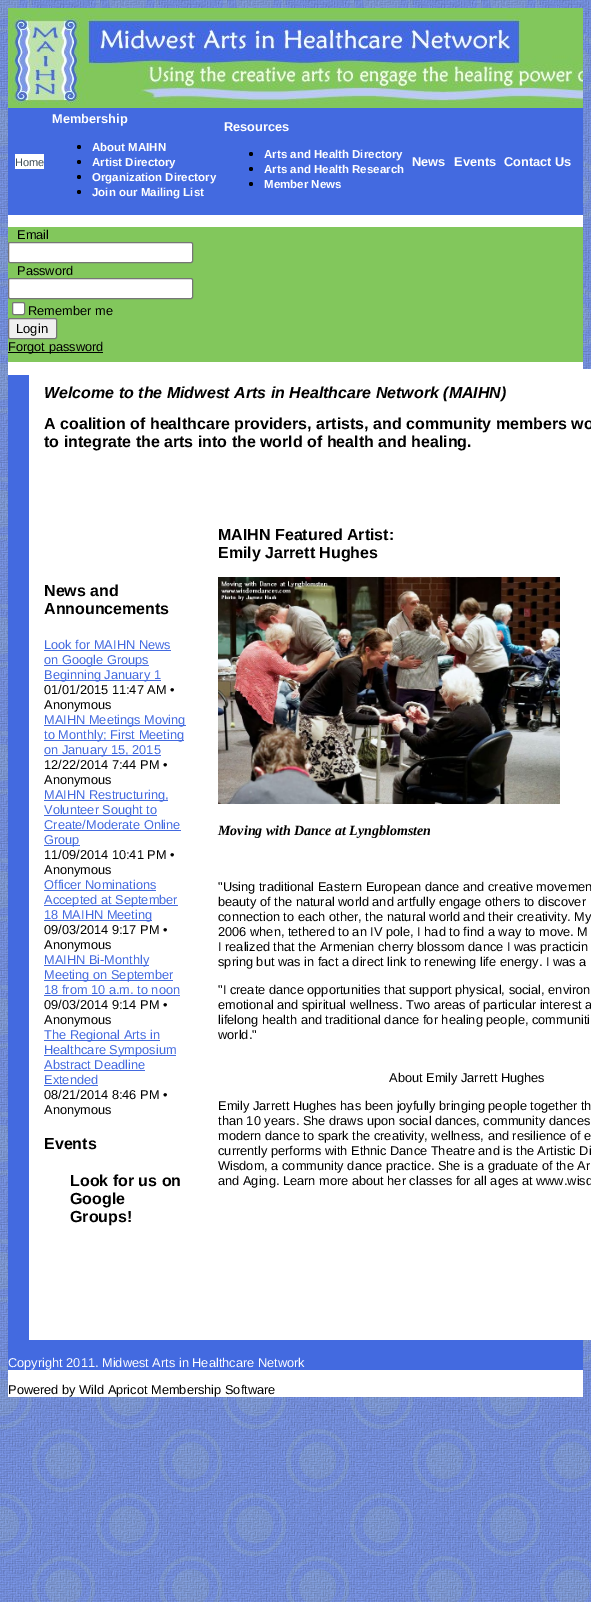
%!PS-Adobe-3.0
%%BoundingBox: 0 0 591 1602
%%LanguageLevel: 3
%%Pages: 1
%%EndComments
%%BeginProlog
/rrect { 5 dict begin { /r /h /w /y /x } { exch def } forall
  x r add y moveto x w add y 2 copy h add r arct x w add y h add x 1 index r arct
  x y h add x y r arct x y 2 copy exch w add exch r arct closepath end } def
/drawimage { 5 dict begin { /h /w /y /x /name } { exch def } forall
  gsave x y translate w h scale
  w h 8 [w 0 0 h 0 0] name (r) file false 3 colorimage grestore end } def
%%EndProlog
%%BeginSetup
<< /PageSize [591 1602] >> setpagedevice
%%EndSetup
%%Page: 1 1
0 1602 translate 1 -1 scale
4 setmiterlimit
1 setgray
0 0 591 1602 rectfill
(images/1.raw) 0 0 591 1602 drawimage
8 215 575 1182 rectfill
(images/2.raw) 8 8 575 100 drawimage
0.263 0.416 0.878 setrgbcolor
8 108 575 107 rectfill
1 setgray
15 154 29 15 rectfill
0 setgray
newpath 79 147 2 0 360 arc closepath fill
newpath 79 162 2 0 360 arc closepath fill
newpath 79 177 2 0 360 arc closepath fill
newpath 79 192 2 0 360 arc closepath fill
newpath 251 154 2 0 360 arc closepath fill
newpath 251 169 2 0 360 arc closepath fill
newpath 251 184 2 0 360 arc closepath fill
0.51 0.78 0.361 setrgbcolor
8 227 575 135 rectfill
1 setgray
8.5 242.5 184 20 1.5 rrect gsave fill grestore
0.463 setgray
stroke
1 setgray
8.5 278.5 184 20 1.5 rrect gsave fill grestore
0.463 setgray
stroke
1 setgray
12.5 302.5 12 12 1.5 rrect gsave fill grestore
0.463 setgray
stroke
0.937 setgray
8.5 318.5 48 20 1.5 rrect gsave fill grestore
0.463 setgray
stroke
0 setgray
8 352 95 1 rectfill
0.263 0.416 0.878 setrgbcolor
8 375 575 995 rectfill
1 setgray
29 369 562 971 rectfill
0.263 0.416 0.878 setrgbcolor
44 650 127 1 rectfill
44 665 105 1 rectfill
44 680 117 1 rectfill
44 725 142 1 rectfill
44 740 140 1 rectfill
44 755 117 1 rectfill
44 800 124 1 rectfill
44 815 113 1 rectfill
44 830 137 1 rectfill
44 845 36 1 rectfill
44 890 112 1 rectfill
44 905 134 1 rectfill
44 920 108 1 rectfill
44 965 105 1 rectfill
44 980 129 1 rectfill
44 995 136 1 rectfill
44 1040 116 1 rectfill
44 1055 132 1 rectfill
44 1070 101 1 rectfill
44 1085 54 1 rectfill
(images/3.raw) 218 577 342 227 drawimage
/LiberationSans-Regular [11 0 0 -11 0 0] selectfont
0.243 0.302 0.333 setrgbcolor
15 166 moveto (Home) show
/LiberationSans-Bold [12.8 0 0 -12.8 0 0] selectfont
1 setgray
52 123 moveto (Membership) show
/LiberationSans-Bold [11.5 0 0 -11.5 0 0] selectfont
92 151 moveto (About MAIHN) show
92 166 moveto (Artist Directory) show
92 181 moveto (Organization Directory) show
92 196 moveto (Join our Mailing List) show
/LiberationSans-Bold [12.8 0 0 -12.8 0 0] selectfont
224 131 moveto (Resources) show
/LiberationSans-Bold [11.5 0 0 -11.5 0 0] selectfont
264 158 moveto (Arts and Health Directory) show
264 173 moveto (Arts and Health Research) show
264 188 moveto (Member News) show
/LiberationSans-Bold [12.8 0 0 -12.8 0 0] selectfont
412 166 moveto (News) show
454 166 moveto (Events) show
504 166 moveto (Contact Us) show
/LiberationSans-Regular [12.8 0 0 -12.8 0 0] selectfont
0 setgray
17 239 moveto (Email) show
17 275 moveto (Password) show
28 315 moveto (Remember me) show
/LiberationSans-Regular [13 0 0 -13 0 0] selectfont
16 333 moveto (Login) show
/LiberationSans-Regular [12.8 0 0 -12.8 0 0] selectfont
8 351 moveto (Forgot password) show
/LiberationSans-BoldItalic [16 0 0 -16 0 0] selectfont
44 398 moveto (Welcome to the Midwest Arts in Healthcare Network \(MAIHN\)) show
/LiberationSans-Bold [16 0 0 -16 0 0] selectfont
44 429 moveto (A coalition of healthcare providers, artists, and community members wo) show
44 447 moveto (to integrate the arts into the world of health and healing.) show
44 596 moveto (News and) show
44 614 moveto (Announcements) show
/LiberationSans-Regular [12.8 0 0 -12.8 0 0] selectfont
0.263 0.416 0.878 setrgbcolor
44 649 moveto (Look for MAIHN News) show
44 664 moveto (on Google Groups) show
44 679 moveto (Beginning January 1) show
0 setgray
44 694 moveto (01/01/2015 11:47 AM •) show
44 709 moveto (Anonymous) show
0.263 0.416 0.878 setrgbcolor
44 724 moveto (MAIHN Meetings Moving) show
44 739 moveto (to Monthly; First Meeting) show
44 754 moveto (on January 15, 2015) show
0 setgray
44 769 moveto (12/22/2014 7:44 PM •) show
44 784 moveto (Anonymous) show
0.263 0.416 0.878 setrgbcolor
44 799 moveto (MAIHN Restructuring,) show
44 814 moveto (Volunteer Sought to) show
44 829 moveto (Create/Moderate Online) show
44 844 moveto (Group) show
0 setgray
44 859 moveto (11/09/2014 10:41 PM •) show
44 874 moveto (Anonymous) show
0.263 0.416 0.878 setrgbcolor
44 889 moveto (Officer Nominations) show
44 904 moveto (Accepted at September) show
44 919 moveto (18 MAIHN Meeting) show
0 setgray
44 934 moveto (09/03/2014 9:17 PM •) show
44 949 moveto (Anonymous) show
0.263 0.416 0.878 setrgbcolor
44 964 moveto (MAIHN Bi-Monthly) show
44 979 moveto (Meeting on September) show
44 994 moveto (18 from 10 a.m. to noon) show
0 setgray
44 1009 moveto (09/03/2014 9:14 PM •) show
44 1024 moveto (Anonymous) show
0.263 0.416 0.878 setrgbcolor
44 1039 moveto (The Regional Arts in) show
44 1054 moveto (Healthcare Symposium) show
44 1069 moveto (Abstract Deadline) show
44 1084 moveto (Extended) show
0 setgray
44 1099 moveto (08/21/2014 8:46 PM •) show
44 1114 moveto (Anonymous) show
/LiberationSans-Bold [16 0 0 -16 0 0] selectfont
44 1149 moveto (Events) show
70 1186 moveto (Look for us on) show
70 1204 moveto (Google) show
70 1222 moveto (Groups!) show
218 540 moveto (MAIHN Featured Artist:) show
218 558 moveto (Emily Jarrett Hughes) show
/LiberationSerif-BoldItalic [14 0 0 -14 0 0] selectfont
218 835 moveto (Moving with Dance at Lyngblomsten) show
/LiberationSans-Regular [12.8 0 0 -12.8 0 0] selectfont
218 891 moveto ("Using traditional Eastern European dance and creative movemen) show
218 906 moveto (beauty of the natural world and artfully engage others to discover) show
218 921 moveto (connection to each other, the natural world and their creativity. My) show
218 936 moveto (2006 when, tethered to an IV pole, I had to find a way to move. M) show
218 951 moveto (I realized that the Armenian cherry blossom dance I was practicin) show
218 966 moveto (spring but was in fact a direct link to renewing life energy. I was a) show
218 994 moveto ("I create dance opportunities that support physical, social, environ) show
218 1009 moveto (emotional and spiritual wellness. Two areas of particular interest a) show
218 1024 moveto (lifelong health and traditional dance for healing people, communiti) show
218 1039 moveto (world.") show
389 1082 moveto (About Emily Jarrett Hughes) show
218 1110 moveto (Emily Jarrett Hughes has been joyfully bringing people together th) show
218 1125 moveto (than 10 years. She draws upon social dances, community dances) show
218 1140 moveto (modern dance to spark the creativity, wellness, and resilience of e) show
218 1155 moveto (currently performs with Ethnic Dance Theatre and is the Artistic Di) show
218 1170 moveto (Wisdom, a community dance practice. She is a graduate of the Ar) show
218 1185 moveto (and Aging. Learn more about her classes for all ages at www.wisd) show
1 setgray
8 1367 moveto (Copyright 2011. Midwest Arts in Healthcare Network) show
0 setgray
8 1394 moveto (Powered by Wild Apricot Membership Software) show
showpage
%%EOF
